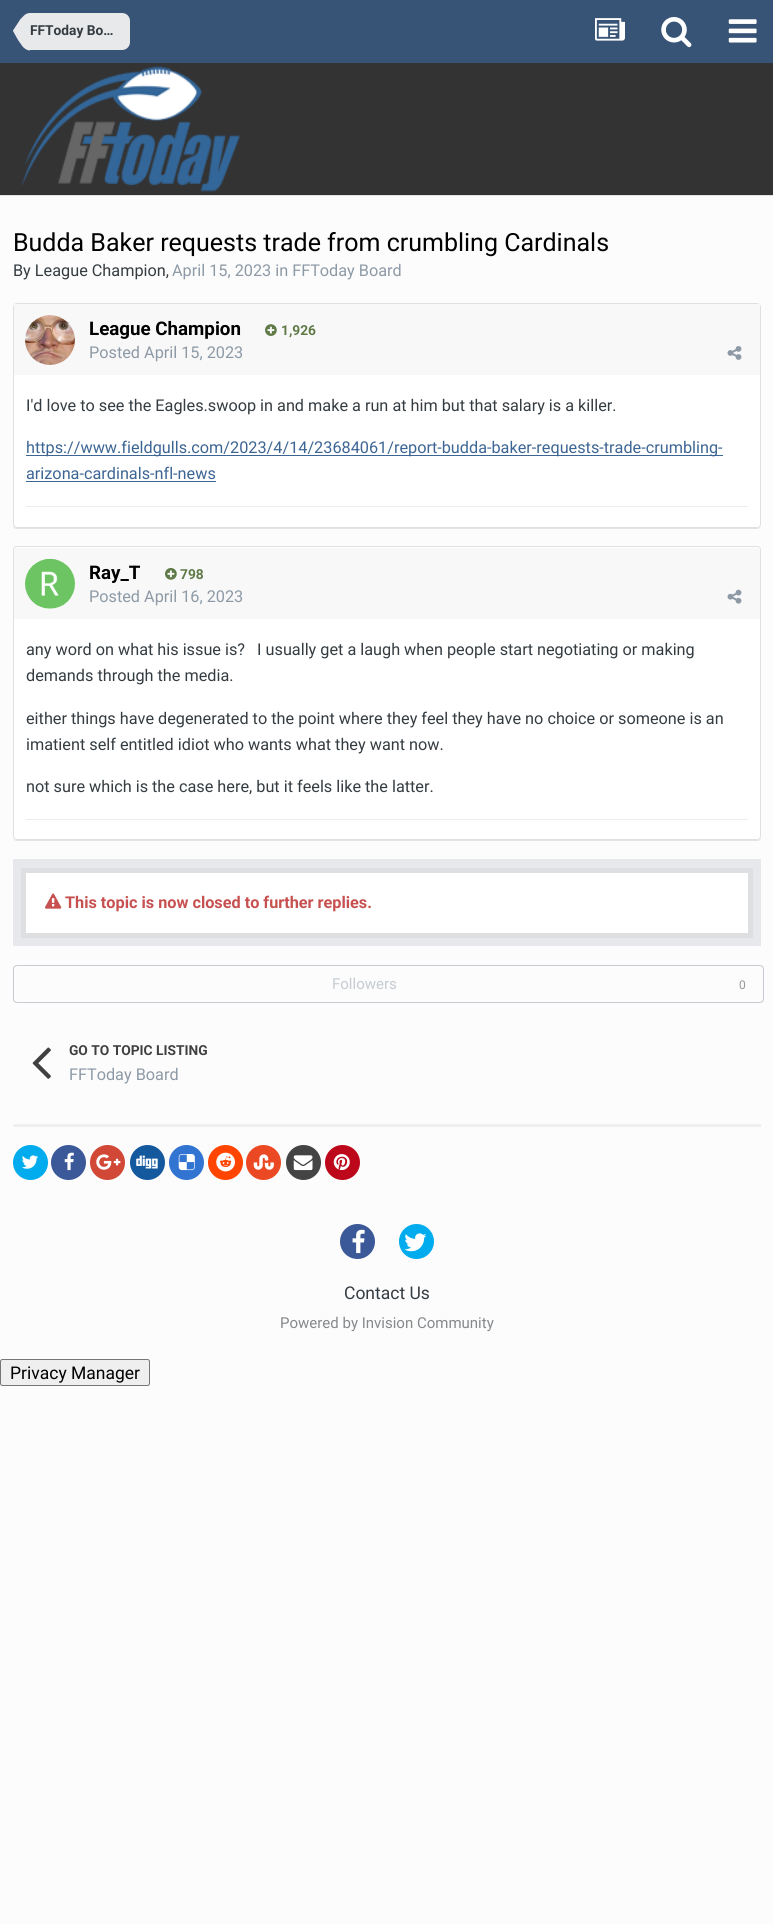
#include <cairo.h>
#include <math.h>
#include <stddef.h>


static void set_color(cairo_t *cr, unsigned color) {
    cairo_set_source_rgb(cr, (color >> 16) / 255.0, (color >> 8 & 255) / 255.0, (color & 255) / 255.0);
}

static void draw_text(cairo_t *cr, double x, double y, const char *s, const char *family, double size, int italic, int bold, unsigned color) {
    cairo_select_font_face(cr, family, italic ? CAIRO_FONT_SLANT_ITALIC : CAIRO_FONT_SLANT_NORMAL,
        bold ? CAIRO_FONT_WEIGHT_BOLD : CAIRO_FONT_WEIGHT_NORMAL);
    cairo_set_font_size(cr, size);
    set_color(cr, color);
    cairo_move_to(cr, x, y);
    cairo_show_text(cr, s);
}

static void fill_rect(cairo_t *cr, double x, double y, double w, double h, unsigned color) {
    set_color(cr, color);
    cairo_rectangle(cr, x, y, w, h);
    cairo_fill(cr);
}

static void rounded_rect(cairo_t *cr, double x, double y, double w, double h, double r) {
    cairo_new_sub_path(cr);
    cairo_arc(cr, x + w - r, y + h - r, r, 0, M_PI / 2);
    cairo_arc(cr, x + r, y + h - r, r, M_PI / 2, M_PI);
    cairo_arc(cr, x + r, y + r, r, M_PI, 1.5 * M_PI);
    cairo_arc(cr, x + w - r, y + r, r, 1.5 * M_PI, 2 * M_PI);
    cairo_close_path(cr);
}

static void draw_image(cairo_t *cr, const char *path, double x, double y, double w, double h) {
    cairo_surface_t *image = cairo_image_surface_create_from_png(path);
    cairo_save(cr);
    cairo_set_source_surface(cr, image, x, y);
    cairo_rectangle(cr, x, y, w, h);
    cairo_fill(cr);
    cairo_restore(cr);
    cairo_surface_destroy(image);
}

int main(void) {
    cairo_surface_t *surface = cairo_image_surface_create(CAIRO_FORMAT_RGB24, 773, 1924);
    cairo_t *cr = cairo_create(surface);
    cairo_font_options_t *options = cairo_font_options_create();
    cairo_font_options_set_hint_metrics(options, CAIRO_HINT_METRICS_OFF);
    cairo_font_options_set_hint_style(options, CAIRO_HINT_STYLE_NONE);
    cairo_set_font_options(cr, options);
    cairo_set_miter_limit(cr, 4);
    set_color(cr, 0xFCFCFC);
    cairo_paint(cr);
    fill_rect(cr, 0, 195, 773, 1, 0xE3E3E3);
    fill_rect(cr, 0, 0, 773, 63, 0x375476);
    set_color(cr, 0xE8E9EB);
    cairo_new_path(cr);
    cairo_move_to(cr, 30, 13);
    cairo_line_to(cr, 122, 13);
    cairo_curve_to(cr, 126.5, 13, 130, 16.5, 130, 21);
    cairo_line_to(cr, 130, 42);
    cairo_curve_to(cr, 130, 46.5, 126.5, 50, 122, 50);
    cairo_line_to(cr, 30, 50);
    cairo_close_path(cr);
    cairo_fill(cr);
    cairo_new_path(cr);
    cairo_move_to(cr, 13, 31);
    cairo_line_to(cr, 30, 31);
    cairo_line_to(cr, 30, 50.5);
    cairo_curve_to(cr, 28, 50.5, 25.5, 49.5, 23, 47);
    cairo_line_to(cr, 18, 40);
    cairo_close_path(cr);
    cairo_move_to(cr, 30, 13);
    cairo_line_to(cr, 30, 31);
    cairo_line_to(cr, 13, 31);
    cairo_line_to(cr, 13, 30.5);
    cairo_line_to(cr, 20.5, 19);
    cairo_line_to(cr, 24, 15.5);
    cairo_curve_to(cr, 25.5, 14, 27.5, 13, 30, 13);
    cairo_close_path(cr);
    cairo_fill(cr);
    draw_text(cr, 30, 35, "FFToday Bo…", "Roboto", 13.75, 0, 1, 0x353C41);
    draw_image(cr, "assets/img1.png", 595, 18, 30, 23);
    draw_image(cr, "assets/img2.png", 661, 17, 31, 31);
    draw_image(cr, "assets/img3.png", 728, 19, 29, 24);
    fill_rect(cr, 0, 63, 773, 132, 0x333333);
    draw_image(cr, "assets/img4.png", 21, 66, 220, 126);
    draw_text(cr, 13, 251, "Budda Baker requests trade from crumbling Cardinals", "Roboto", 25, 0, 0, 0x000000);
    draw_text(cr, 13, 276, "By League Champion,", "Roboto", 16.25, 0, 0, 0x353C41);
    draw_text(cr, 172, 276, "April 15, 2023 in FFToday Board", "Roboto", 16.25, 0, 0, 0x8D9AA6);
    set_color(cr, 0xE3E3E3);
    cairo_new_path(cr);
    cairo_move_to(cr, 13, 526);
    cairo_curve_to(cr, 13, 528, 15, 529, 17, 529);
    cairo_line_to(cr, 757, 529);
    cairo_curve_to(cr, 759, 529, 761, 527, 761, 525);
    cairo_curve_to(cr, 760, 527, 759, 528, 758, 528);
    cairo_line_to(cr, 16, 528);
    cairo_curve_to(cr, 15, 528, 14, 527, 13, 526);
    cairo_close_path(cr);
    cairo_fill(cr);
    set_color(cr, 0xFFFFFF);
    rounded_rect(cr, 13.5, 303.5, 747, 224, 3.5);
    cairo_fill_preserve(cr);
    set_color(cr, 0xE0E0E0);
    cairo_set_line_width(cr, 1);
    cairo_stroke(cr);
    fill_rect(cr, 14, 304, 746, 71, 0xF8F8F8);
    set_color(cr, 0xFFFFFF);
    cairo_arc(cr, 50, 340, 25, 0, 2 * M_PI);
    cairo_fill(cr);
    draw_image(cr, "assets/img5.png", 25, 315, 50, 50);
    draw_text(cr, 89, 335, "League Champion", "Roboto", 18.75, 0, 1, 0x000000);
    draw_image(cr, "assets/img6.png", 265, 324, 12, 12);
    draw_text(cr, 281, 335, "1,926", "Roboto", 13.75, 0, 1, 0x5F7A47);
    draw_text(cr, 89, 358, "Posted April 15, 2023", "Roboto", 16.25, 0, 0, 0x8D9AA6);
    draw_image(cr, "assets/img7.png", 727, 346, 15, 14);
    draw_text(cr, 26, 411, "I'd love to see the Eagles.swoop in and make a run at him but that salary is a killer.", "Roboto", 16.25, 0, 0, 0x353C41);
    fill_rect(cr, 26, 455, 697, 1, 0x3D6594);
    draw_text(cr, 26, 453, "https://www.fieldgulls.com/2023/4/14/23684061/report-budda-baker-requests-trade-crumbling-", "Roboto", 16.25, 0, 0, 0x3D6594);
    draw_text(cr, 26, 479, "arizona-cardinals-nfl-news", "Roboto", 16.25, 0, 0, 0x3D6594);
    fill_rect(cr, 26, 481, 190, 1, 0x3D6594);
    fill_rect(cr, 26, 506, 722, 1, 0xECECEC);
    set_color(cr, 0xE3E3E3);
    cairo_new_path(cr);
    cairo_move_to(cr, 13, 839);
    cairo_curve_to(cr, 14, 840, 15, 841, 17, 841);
    cairo_line_to(cr, 757, 841);
    cairo_curve_to(cr, 759, 841, 761, 840, 761, 838);
    cairo_curve_to(cr, 760, 839, 759, 840, 758, 840);
    cairo_line_to(cr, 16, 840);
    cairo_curve_to(cr, 15, 840, 14, 839, 13, 839);
    cairo_close_path(cr);
    cairo_fill(cr);
    set_color(cr, 0xFFFFFF);
    rounded_rect(cr, 13.5, 546.5, 747, 293, 3.5);
    cairo_fill_preserve(cr);
    set_color(cr, 0xE0E0E0);
    cairo_stroke(cr);
    fill_rect(cr, 14, 548, 746, 71, 0xF8F8F8);
    set_color(cr, 0xFFFFFF);
    cairo_arc(cr, 50, 584, 25, 0, 2 * M_PI);
    cairo_fill(cr);
    draw_image(cr, "assets/img8.png", 25, 558, 50, 51);
    draw_text(cr, 89, 579, "Ray_T", "Roboto", 18.75, 0, 1, 0x000000);
    draw_image(cr, "assets/img9.png", 165, 568, 12, 12);
    draw_text(cr, 180, 579, "798", "Roboto", 13.75, 0, 1, 0x5F7A47);
    draw_text(cr, 89, 602, "Posted April 16, 2023", "Roboto", 16.25, 0, 0, 0x8D9AA6);
    draw_image(cr, "assets/img10.png", 727, 589, 15, 15);
    draw_text(cr, 26, 655, "any word on what his issue is?   I usually get a laugh when people start negotiating or making", "Roboto", 16.25, 0, 0, 0x353C41);
    draw_text(cr, 26, 681, "demands through the media.", "Roboto", 16.25, 0, 0, 0x353C41);
    draw_text(cr, 26, 724, "either things have degenerated to the point where they feel they have no choice or someone is an", "Roboto", 16.25, 0, 0, 0x353C41);
    draw_text(cr, 26, 750, "imatient self entitled idiot who wants what they want now.", "Roboto", 16.25, 0, 0, 0x353C41);
    draw_text(cr, 26, 792, "not sure which is the case here, but it feels like the latter.", "Roboto", 16.25, 0, 0, 0x353C41);
    fill_rect(cr, 26, 819, 722, 1, 0xECECEC);
    fill_rect(cr, 13, 859, 748, 87, 0xE6E8EB);
    fill_rect(cr, 21, 868, 732, 70, 0xDEDFE1);
    fill_rect(cr, 26, 873, 722, 60, 0xFFFFFF);
    draw_image(cr, "assets/img11.png", 45, 893, 17, 16);
    draw_text(cr, 65, 908, "This topic is now closed to further replies.", "Roboto", 16.25, 0, 1, 0xC75050);
    rounded_rect(cr, 13.5, 965.5, 750, 37, 3.5);
    set_color(cr, 0xC5CBD1);
    cairo_stroke(cr);
    draw_text(cr, 332, 989, "Followers", "Roboto", 15, 0, 0, 0xC5CBD1);
    draw_text(cr, 739, 989, "0", "Roboto", 12, 0, 0, 0x989898);
    draw_image(cr, "assets/img12.png", 32, 1047, 19, 32);
    draw_text(cr, 69, 1055, "GO TO TOPIC LISTING", "Roboto", 13.75, 0, 1, 0x404040);
    draw_text(cr, 69, 1080, "FFToday Board", "Roboto", 16.25, 0, 0, 0x8D9AA6);
    fill_rect(cr, 13, 1124, 748, 3, 0xEFEFEF);
    set_color(cr, 0x00ACED);
    cairo_new_path(cr);
    cairo_arc(cr, 30.5, 1162.5, 17.5, 0, 2 * M_PI);
    cairo_fill(cr);
    draw_image(cr, "assets/img13.png", 22, 1155, 16, 14);
    set_color(cr, 0x3B5998);
    cairo_arc(cr, 68.5, 1162.5, 17.5, 0, 2 * M_PI);
    cairo_fill(cr);
    draw_image(cr, "assets/img14.png", 64, 1152, 10, 19);
    set_color(cr, 0xD14836);
    cairo_arc(cr, 107.5, 1162.5, 17.5, 0, 2 * M_PI);
    cairo_fill(cr);
    draw_image(cr, "assets/img15.png", 96, 1154, 25, 16);
    set_color(cr, 0x14589E);
    cairo_arc(cr, 147.5, 1162.5, 17.5, 0, 2 * M_PI);
    cairo_fill(cr);
    draw_image(cr, "assets/img16.png", 136, 1155, 22, 14);
    set_color(cr, 0x3274D1);
    cairo_arc(cr, 186.5, 1162.5, 17.5, 0, 2 * M_PI);
    cairo_fill(cr);
    draw_image(cr, "assets/img17.png", 178, 1154, 17, 17);
    set_color(cr, 0xFF4500);
    cairo_arc(cr, 225.5, 1162.5, 17.5, 0, 2 * M_PI);
    cairo_fill(cr);
    draw_image(cr, "assets/img18.png", 216, 1152, 19, 20);
    set_color(cr, 0xEB4924);
    cairo_arc(cr, 263.5, 1162.5, 17.5, 0, 2 * M_PI);
    cairo_fill(cr);
    draw_image(cr, "assets/img19.png", 253, 1154, 21, 16);
    set_color(cr, 0x444444);
    cairo_arc(cr, 303.5, 1162.5, 17.5, 0, 2 * M_PI);
    cairo_fill(cr);
    draw_image(cr, "assets/img20.png", 293, 1155, 20, 16);
    set_color(cr, 0xBD081C);
    cairo_arc(cr, 342.5, 1162.5, 17.5, 0, 2 * M_PI);
    cairo_fill(cr);
    draw_image(cr, "assets/img21.png", 333, 1154, 17, 17);
    set_color(cr, 0x3B5998);
    cairo_arc(cr, 357.5, 1241.5, 17.5, 0, 2 * M_PI);
    cairo_fill(cr);
    draw_image(cr, "assets/img22.png", 352, 1229, 13, 25);
    set_color(cr, 0x00ACED);
    cairo_arc(cr, 416.5, 1241.5, 17.5, 0, 2 * M_PI);
    cairo_fill(cr);
    draw_image(cr, "assets/img23.png", 404, 1233, 23, 19);
    draw_text(cr, 344, 1299, "Contact Us", "Roboto", 17.5, 0, 0, 0x353C41);
    draw_text(cr, 280, 1328, "Powered by Invision Community", "Roboto", 15, 0, 0, 0x85898C);
    set_color(cr, 0xEFEFEF);
    rounded_rect(cr, 0.5, 1359.5, 149, 26, 2);
    cairo_fill_preserve(cr);
    set_color(cr, 0x767676);
    cairo_stroke(cr);
    draw_text(cr, 10, 1379, "Privacy Manager", "Roboto", 17.5, 0, 0, 0x000000);
    cairo_surface_write_to_png(surface, "output.png");
    cairo_font_options_destroy(options);
    cairo_destroy(cr);
    cairo_surface_destroy(surface);
    return 0;
}
